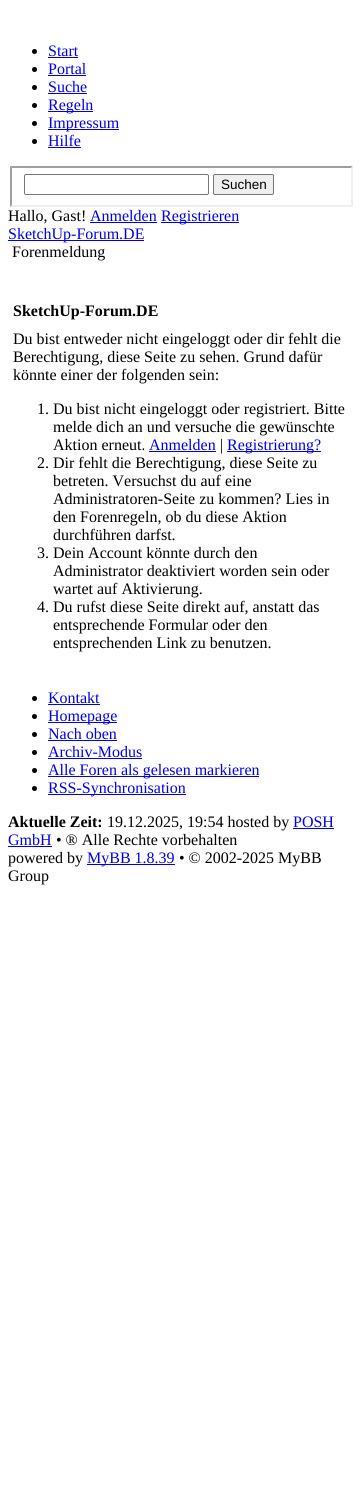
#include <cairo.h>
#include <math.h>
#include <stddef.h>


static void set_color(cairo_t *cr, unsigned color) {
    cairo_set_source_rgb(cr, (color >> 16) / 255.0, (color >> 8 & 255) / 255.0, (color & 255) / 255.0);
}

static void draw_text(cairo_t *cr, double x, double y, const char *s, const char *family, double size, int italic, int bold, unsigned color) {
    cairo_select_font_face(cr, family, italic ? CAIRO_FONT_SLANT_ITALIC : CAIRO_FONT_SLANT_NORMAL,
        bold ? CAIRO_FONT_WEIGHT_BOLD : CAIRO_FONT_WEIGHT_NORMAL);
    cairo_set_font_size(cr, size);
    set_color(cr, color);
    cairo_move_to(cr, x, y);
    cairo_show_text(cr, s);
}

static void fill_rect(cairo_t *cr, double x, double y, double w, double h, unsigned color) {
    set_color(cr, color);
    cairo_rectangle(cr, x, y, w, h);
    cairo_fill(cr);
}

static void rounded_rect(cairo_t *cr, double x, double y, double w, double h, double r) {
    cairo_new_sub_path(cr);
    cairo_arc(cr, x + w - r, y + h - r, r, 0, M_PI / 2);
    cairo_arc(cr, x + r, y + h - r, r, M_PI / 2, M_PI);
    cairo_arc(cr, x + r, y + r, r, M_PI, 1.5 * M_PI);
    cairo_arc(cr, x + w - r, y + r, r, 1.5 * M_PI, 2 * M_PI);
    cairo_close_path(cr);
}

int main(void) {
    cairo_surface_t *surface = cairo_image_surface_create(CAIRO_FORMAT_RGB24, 363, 1488);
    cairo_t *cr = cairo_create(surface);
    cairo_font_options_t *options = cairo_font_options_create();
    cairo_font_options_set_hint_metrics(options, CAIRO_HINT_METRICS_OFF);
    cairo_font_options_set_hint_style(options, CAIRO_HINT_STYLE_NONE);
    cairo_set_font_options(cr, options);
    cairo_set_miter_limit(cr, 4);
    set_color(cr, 0xFFFFFF);
    cairo_paint(cr);
    set_color(cr, 0x000000);
    cairo_arc(cr, 34.5, 51.5, 2.5, 0, 2 * M_PI);
    cairo_fill(cr);
    draw_text(cr, 48, 56, "Start", "Liberation Serif", 16, 0, 0, 0x0000EE);
    fill_rect(cr, 48, 57, 30, 1, 0x0000EE);
    set_color(cr, 0x000000);
    cairo_new_path(cr);
    cairo_arc(cr, 34.5, 69.5, 2.5, 0, 2 * M_PI);
    cairo_fill(cr);
    draw_text(cr, 48, 74, "Portal", "Liberation Serif", 16, 0, 0, 0x0000EE);
    fill_rect(cr, 48, 75, 38, 1, 0x0000EE);
    set_color(cr, 0x000000);
    cairo_new_path(cr);
    cairo_arc(cr, 34.5, 87.5, 2.5, 0, 2 * M_PI);
    cairo_fill(cr);
    draw_text(cr, 48, 92, "Suche", "Liberation Serif", 16, 0, 0, 0x0000EE);
    fill_rect(cr, 48, 93, 39, 1, 0x0000EE);
    set_color(cr, 0x000000);
    cairo_new_path(cr);
    cairo_arc(cr, 34.5, 105.5, 2.5, 0, 2 * M_PI);
    cairo_fill(cr);
    fill_rect(cr, 48, 111, 45, 1, 0x0000EE);
    draw_text(cr, 48, 110, "Regeln", "Liberation Serif", 16, 0, 0, 0x0000EE);
    set_color(cr, 0x000000);
    cairo_new_path(cr);
    cairo_arc(cr, 34.5, 123.5, 2.5, 0, 2 * M_PI);
    cairo_fill(cr);
    fill_rect(cr, 48, 129, 71, 1, 0x0000EE);
    draw_text(cr, 48, 128, "Impressum", "Liberation Serif", 16, 0, 0, 0x0000EE);
    set_color(cr, 0x000000);
    cairo_new_path(cr);
    cairo_arc(cr, 34.5, 141.5, 2.5, 0, 2 * M_PI);
    cairo_fill(cr);
    draw_text(cr, 48, 146, "Hilfe", "Liberation Serif", 16, 0, 0, 0x0000EE);
    fill_rect(cr, 48, 147, 33, 1, 0x0000EE);
    set_color(cr, 0x9F9F9F);
    cairo_new_path(cr);
    cairo_move_to(cr, 10, 166);
    cairo_line_to(cr, 353, 166);
    cairo_line_to(cr, 351, 168);
    cairo_line_to(cr, 12, 168);
    cairo_close_path(cr);
    cairo_fill(cr);
    set_color(cr, 0xEFEFEF);
    cairo_new_path(cr);
    cairo_move_to(cr, 353, 166);
    cairo_line_to(cr, 353, 207);
    cairo_line_to(cr, 351, 205);
    cairo_line_to(cr, 351, 168);
    cairo_close_path(cr);
    cairo_fill(cr);
    cairo_new_path(cr);
    cairo_move_to(cr, 353, 207);
    cairo_line_to(cr, 10, 207);
    cairo_line_to(cr, 12, 205);
    cairo_line_to(cr, 351, 205);
    cairo_close_path(cr);
    cairo_fill(cr);
    set_color(cr, 0x9F9F9F);
    cairo_new_path(cr);
    cairo_move_to(cr, 10, 207);
    cairo_line_to(cr, 10, 166);
    cairo_line_to(cr, 12, 168);
    cairo_line_to(cr, 12, 205);
    cairo_close_path(cr);
    cairo_fill(cr);
    rounded_rect(cr, 24.5, 174.5, 184, 20, 1.5);
    set_color(cr, 0x767676);
    cairo_set_line_width(cr, 1);
    cairo_stroke(cr);
    set_color(cr, 0xEFEFEF);
    rounded_rect(cr, 213.5, 174.5, 60, 20, 1.5);
    cairo_fill_preserve(cr);
    set_color(cr, 0x767676);
    cairo_stroke(cr);
    draw_text(cr, 221, 189, "Suchen", "Liberation Sans", 13.5, 0, 0, 0x000000);
    draw_text(cr, 8, 221, "Hallo, Gast!", "Liberation Serif", 16, 0, 0, 0x000000);
    draw_text(cr, 90, 221, "Anmelden", "Liberation Serif", 16, 0, 0, 0x0000EE);
    fill_rect(cr, 90, 222, 67, 1, 0x0000EE);
    fill_rect(cr, 161, 222, 78, 1, 0x0000EE);
    draw_text(cr, 161, 221, "Registrieren", "Liberation Serif", 16, 0, 0, 0x0000EE);
    fill_rect(cr, 8, 240, 136, 1, 0x0000EE);
    draw_text(cr, 8, 239, "SketchUp-Forum.DE", "Liberation Serif", 16, 0, 0, 0x0000EE);
    draw_text(cr, 12, 257, "Forenmeldung", "Liberation Serif", 16, 0, 0, 0x000000);
    draw_text(cr, 13, 316, "SketchUp-Forum.DE", "Liberation Serif", 16, 0, 1, 0x000000);
    draw_text(cr, 13, 344, "Du bist entweder nicht eingeloggt oder dir fehlt die", "Liberation Serif", 16, 0, 0, 0x000000);
    draw_text(cr, 13, 362, "Berechtigung, diese Seite zu sehen. Grund dafür", "Liberation Serif", 16, 0, 0, 0x000000);
    draw_text(cr, 13, 380, "könnte einer der folgenden sein:", "Liberation Serif", 16, 0, 0, 0x000000);
    draw_text(cr, 37, 414, "1. Du bist nicht eingeloggt oder registriert. Bitte", "Liberation Serif", 16, 0, 0, 0x000000);
    draw_text(cr, 53, 432, "melde dich an und versuche die gewünschte", "Liberation Serif", 16, 0, 0, 0x000000);
    draw_text(cr, 53, 450, "Aktion erneut.", "Liberation Serif", 16, 0, 0, 0x000000);
    draw_text(cr, 149, 450, "Anmelden", "Liberation Serif", 16, 0, 0, 0x0000EE);
    fill_rect(cr, 149, 451, 67, 1, 0x0000EE);
    draw_text(cr, 220, 450, "|", "Liberation Serif", 16, 0, 0, 0x000000);
    fill_rect(cr, 227, 451, 94, 1, 0x0000EE);
    draw_text(cr, 227, 450, "Registrierung?", "Liberation Serif", 16, 0, 0, 0x0000EE);
    draw_text(cr, 37, 468, "2. Dir fehlt die Berechtigung, diese Seite zu", "Liberation Serif", 16, 0, 0, 0x000000);
    draw_text(cr, 53, 486, "betreten. Versuchst du auf eine", "Liberation Serif", 16, 0, 0, 0x000000);
    draw_text(cr, 53, 504, "Administratoren-Seite zu kommen? Lies in", "Liberation Serif", 16, 0, 0, 0x000000);
    draw_text(cr, 53, 522, "den Forenregeln, ob du diese Aktion", "Liberation Serif", 16, 0, 0, 0x000000);
    draw_text(cr, 53, 540, "durchführen darfst.", "Liberation Serif", 16, 0, 0, 0x000000);
    draw_text(cr, 37, 558, "3. Dein Account könnte durch den", "Liberation Serif", 16, 0, 0, 0x000000);
    draw_text(cr, 53, 576, "Administrator deaktiviert worden sein oder", "Liberation Serif", 16, 0, 0, 0x000000);
    draw_text(cr, 53, 594, "wartet auf Aktivierung.", "Liberation Serif", 16, 0, 0, 0x000000);
    draw_text(cr, 37, 612, "4. Du rufst diese Seite direkt auf, anstatt das", "Liberation Serif", 16, 0, 0, 0x000000);
    draw_text(cr, 53, 630, "entsprechende Formular oder den", "Liberation Serif", 16, 0, 0, 0x000000);
    draw_text(cr, 53, 648, "entsprechenden Link zu benutzen.", "Liberation Serif", 16, 0, 0, 0x000000);
    cairo_new_path(cr);
    cairo_arc(cr, 34.5, 698.5, 2.5, 0, 2 * M_PI);
    cairo_fill(cr);
    draw_text(cr, 48, 703, "Kontakt", "Liberation Serif", 16, 0, 0, 0x0000EE);
    fill_rect(cr, 48, 704, 52, 1, 0x0000EE);
    set_color(cr, 0x000000);
    cairo_new_path(cr);
    cairo_arc(cr, 34.5, 716.5, 2.5, 0, 2 * M_PI);
    cairo_fill(cr);
    fill_rect(cr, 48, 722, 69, 1, 0x0000EE);
    draw_text(cr, 48, 721, "Homepage", "Liberation Serif", 16, 0, 0, 0x0000EE);
    set_color(cr, 0x000000);
    cairo_new_path(cr);
    cairo_arc(cr, 34.5, 734.5, 2.5, 0, 2 * M_PI);
    cairo_fill(cr);
    draw_text(cr, 48, 739, "Nach oben", "Liberation Serif", 16, 0, 0, 0x0000EE);
    fill_rect(cr, 48, 740, 69, 1, 0x0000EE);
    set_color(cr, 0x000000);
    cairo_new_path(cr);
    cairo_arc(cr, 34.5, 752.5, 2.5, 0, 2 * M_PI);
    cairo_fill(cr);
    draw_text(cr, 48, 757, "Archiv-Modus", "Liberation Serif", 16, 0, 0, 0x0000EE);
    fill_rect(cr, 48, 758, 94, 1, 0x0000EE);
    set_color(cr, 0x000000);
    cairo_new_path(cr);
    cairo_arc(cr, 34.5, 770.5, 2.5, 0, 2 * M_PI);
    cairo_fill(cr);
    fill_rect(cr, 48, 776, 211, 1, 0x0000EE);
    draw_text(cr, 48, 775, "Alle Foren als gelesen markieren", "Liberation Serif", 16, 0, 0, 0x0000EE);
    set_color(cr, 0x000000);
    cairo_new_path(cr);
    cairo_arc(cr, 34.5, 788.5, 2.5, 0, 2 * M_PI);
    cairo_fill(cr);
    fill_rect(cr, 48, 794, 138, 1, 0x0000EE);
    draw_text(cr, 48, 793, "RSS-Synchronisation", "Liberation Serif", 16, 0, 0, 0x0000EE);
    draw_text(cr, 8, 827, "Aktuelle Zeit:", "Liberation Serif", 16, 0, 1, 0x000000);
    draw_text(cr, 107, 827, "19.12.2025, 19:54 hosted by", "Liberation Serif", 16, 0, 0, 0x000000);
    draw_text(cr, 293, 827, "POSH", "Liberation Serif", 16, 0, 0, 0x0000EE);
    fill_rect(cr, 293, 828, 41, 1, 0x0000EE);
    draw_text(cr, 8, 845, "GmbH", "Liberation Serif", 16, 0, 0, 0x0000EE);
    fill_rect(cr, 8, 846, 44, 1, 0x0000EE);
    draw_text(cr, 56, 845, "• ® Alle Rechte vorbehalten", "Liberation Serif", 16, 0, 0, 0x000000);
    draw_text(cr, 8, 863, "powered by", "Liberation Serif", 16, 0, 0, 0x000000);
    fill_rect(cr, 87, 864, 88, 1, 0x0000EE);
    draw_text(cr, 87, 863, "MyBB 1.8.39", "Liberation Serif", 16, 0, 0, 0x0000EE);
    draw_text(cr, 179, 863, "• © 2002-2025 MyBB", "Liberation Serif", 16, 0, 0, 0x000000);
    draw_text(cr, 8, 881, "Group", "Liberation Serif", 16, 0, 0, 0x000000);
    cairo_surface_write_to_png(surface, "output.png");
    cairo_font_options_destroy(options);
    cairo_destroy(cr);
    cairo_surface_destroy(surface);
    return 0;
}
